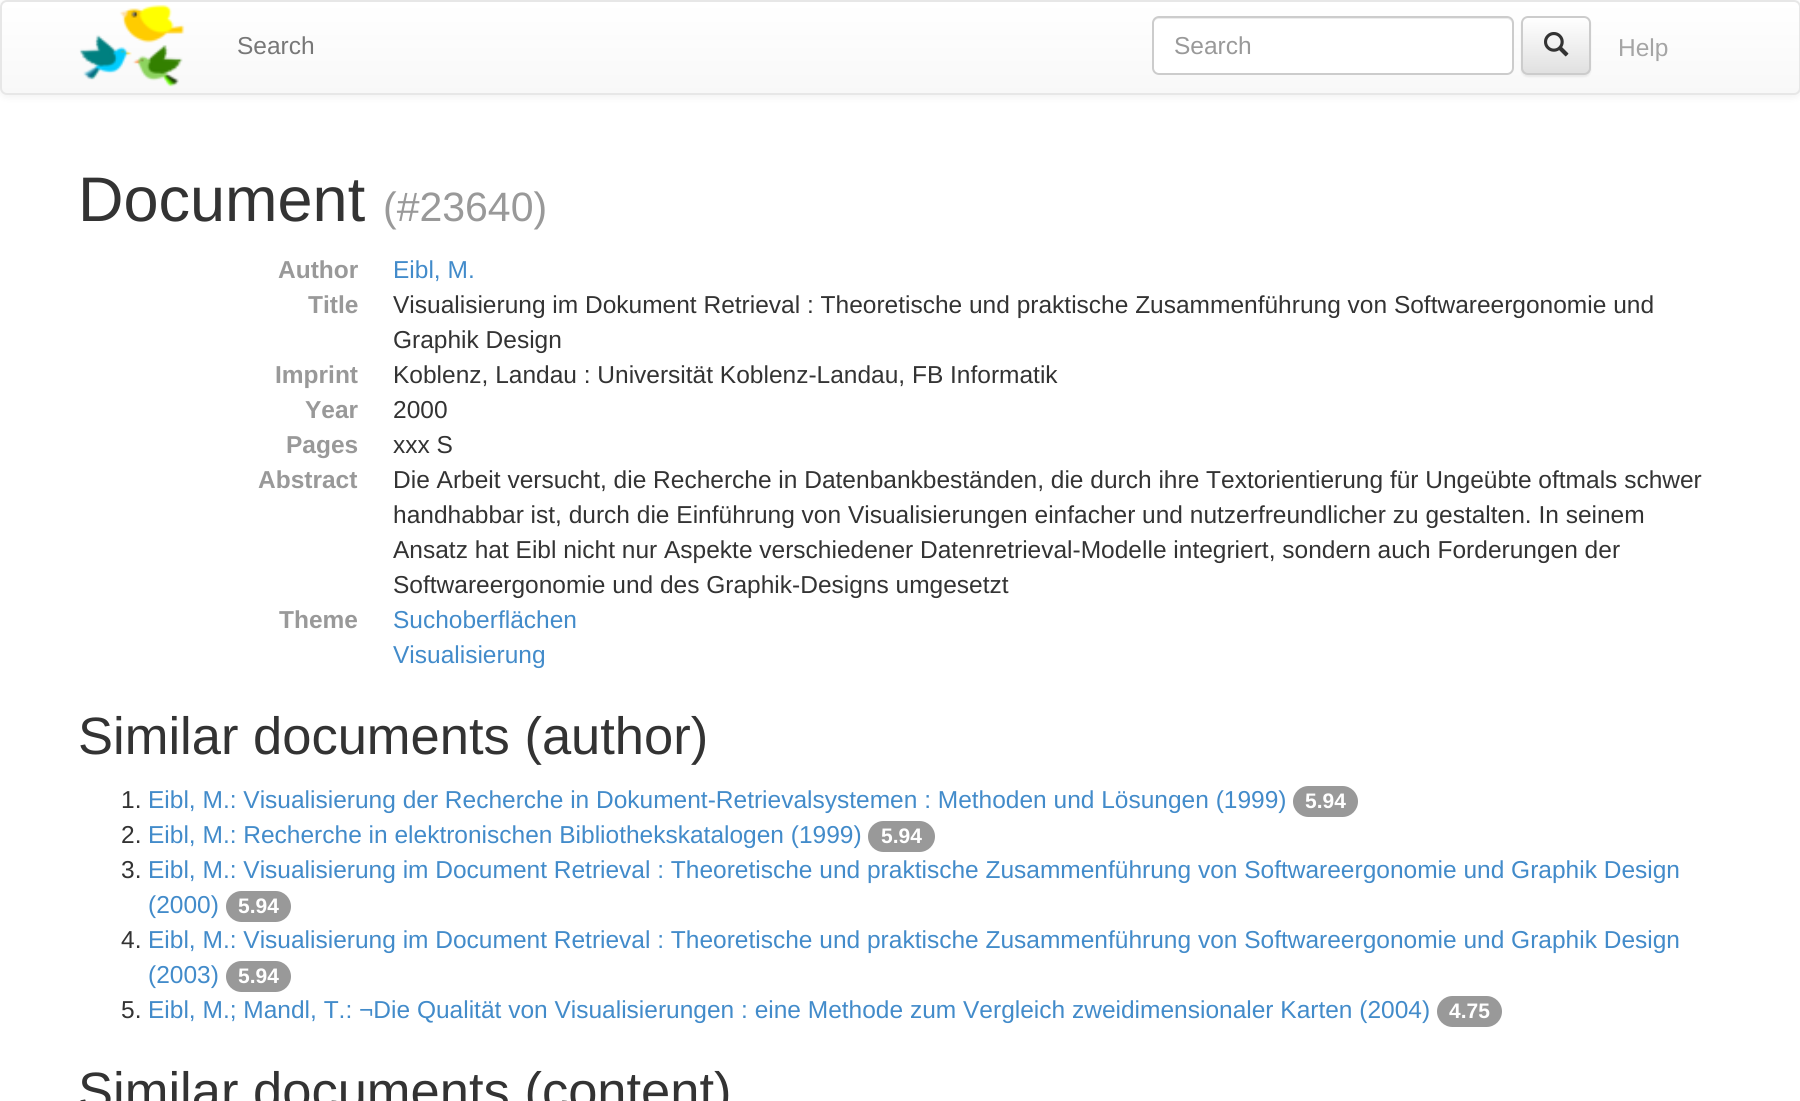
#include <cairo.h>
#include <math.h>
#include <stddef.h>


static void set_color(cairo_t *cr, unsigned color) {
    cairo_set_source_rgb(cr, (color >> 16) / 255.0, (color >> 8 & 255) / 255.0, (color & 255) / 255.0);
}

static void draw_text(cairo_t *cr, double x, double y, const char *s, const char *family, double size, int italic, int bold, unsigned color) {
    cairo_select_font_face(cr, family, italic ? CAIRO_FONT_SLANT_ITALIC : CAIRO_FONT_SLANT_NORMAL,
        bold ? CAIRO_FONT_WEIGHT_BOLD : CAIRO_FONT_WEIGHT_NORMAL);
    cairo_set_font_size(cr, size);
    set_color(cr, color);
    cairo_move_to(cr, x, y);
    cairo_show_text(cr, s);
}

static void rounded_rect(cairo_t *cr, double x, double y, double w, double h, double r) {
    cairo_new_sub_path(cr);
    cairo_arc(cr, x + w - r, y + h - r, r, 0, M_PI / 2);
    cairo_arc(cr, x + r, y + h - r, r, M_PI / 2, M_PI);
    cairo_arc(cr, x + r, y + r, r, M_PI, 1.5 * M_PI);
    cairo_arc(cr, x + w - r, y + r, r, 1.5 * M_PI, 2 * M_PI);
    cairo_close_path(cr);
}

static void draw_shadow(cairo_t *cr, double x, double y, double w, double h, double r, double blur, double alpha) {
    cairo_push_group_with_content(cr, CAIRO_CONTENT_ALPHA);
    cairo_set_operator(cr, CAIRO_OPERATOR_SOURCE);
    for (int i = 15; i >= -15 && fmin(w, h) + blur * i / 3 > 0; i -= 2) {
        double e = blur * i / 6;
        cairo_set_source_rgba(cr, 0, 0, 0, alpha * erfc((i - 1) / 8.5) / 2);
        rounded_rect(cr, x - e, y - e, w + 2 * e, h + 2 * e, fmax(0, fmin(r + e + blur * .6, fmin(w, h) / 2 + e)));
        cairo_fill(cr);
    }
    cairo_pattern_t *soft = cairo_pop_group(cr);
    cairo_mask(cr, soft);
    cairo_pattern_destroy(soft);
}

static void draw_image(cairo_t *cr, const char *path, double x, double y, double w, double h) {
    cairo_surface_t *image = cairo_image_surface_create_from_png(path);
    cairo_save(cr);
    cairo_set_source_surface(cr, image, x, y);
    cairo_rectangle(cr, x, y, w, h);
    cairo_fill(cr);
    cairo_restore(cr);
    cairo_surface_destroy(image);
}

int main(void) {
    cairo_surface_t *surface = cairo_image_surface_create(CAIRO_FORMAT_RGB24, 1800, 1101);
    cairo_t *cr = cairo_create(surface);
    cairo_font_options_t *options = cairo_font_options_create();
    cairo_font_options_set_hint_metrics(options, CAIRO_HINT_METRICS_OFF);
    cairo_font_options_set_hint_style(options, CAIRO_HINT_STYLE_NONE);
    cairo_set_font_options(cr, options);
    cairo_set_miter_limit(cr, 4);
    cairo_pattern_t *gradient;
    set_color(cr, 0xFFFFFF);
    cairo_paint(cr);
    set_color(cr, 0x000000);
    draw_shadow(cr, 0, 2, 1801, 94, 7, 4.5, 0.07);
    cairo_save(cr);
    rounded_rect(cr, 0, 0, 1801, 95, 7);
    cairo_clip(cr);
    gradient = cairo_pattern_create_linear(900, 1.7, 900, 93);
    cairo_pattern_add_color_stop_rgba(gradient, 0, 1, 1, 1, 1);
    cairo_pattern_add_color_stop_rgba(gradient, 1, 0.973, 0.973, 0.973, 1);
    cairo_set_source(cr, gradient);
    cairo_pattern_destroy(gradient);
    cairo_rectangle(cr, 0, 2, 1800, 91);
    cairo_fill(cr);
    cairo_restore(cr);
    rounded_rect(cr, 1, 1, 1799, 93, 6);
    set_color(cr, 0xE7E7E7);
    cairo_stroke(cr);
    draw_image(cr, "assets/img1.png", 79, 4, 106, 83);
    draw_text(cr, 237, 54, "Search", "Liberation Sans", 24.5, 0, 0, 0x777777);
    set_color(cr, 0xFFFFFF);
    rounded_rect(cr, 1152, 16, 362, 59, 7);
    cairo_fill(cr);
    set_color(cr, 0xECECEC);
    cairo_new_path(cr);
    cairo_move_to(cr, 1158, 19);
    cairo_line_to(cr, 1507, 19);
    cairo_curve_to(cr, 1510, 19, 1512, 22, 1512, 24);
    cairo_line_to(cr, 1512, 23);
    cairo_curve_to(cr, 1512, 20, 1510, 18, 1507, 18);
    cairo_line_to(cr, 1158, 18);
    cairo_curve_to(cr, 1155, 18, 1153, 20, 1153, 23);
    cairo_line_to(cr, 1153, 24);
    cairo_curve_to(cr, 1153, 22, 1156, 19, 1158, 19);
    cairo_close_path(cr);
    cairo_fill(cr);
    rounded_rect(cr, 1153, 17, 360, 57, 6);
    set_color(cr, 0xCCCCCC);
    cairo_stroke(cr);
    draw_text(cr, 1174, 54, "Search", "Liberation Sans", 24.5, 0, 0, 0x999999);
    set_color(cr, 0x000000);
    draw_shadow(cr, 1521, 18, 70, 59, 7, 1, 0.07);
    cairo_save(cr);
    rounded_rect(cr, 1521, 16, 70, 59, 7);
    cairo_clip(cr);
    gradient = cairo_pattern_create_linear(1556, 17, 1556, 74);
    cairo_pattern_add_color_stop_rgba(gradient, 0, 1, 1, 1, 1);
    cairo_pattern_add_color_stop_rgba(gradient, 1, 0.878, 0.878, 0.878, 1);
    cairo_set_source(cr, gradient);
    cairo_pattern_destroy(gradient);
    cairo_rectangle(cr, 1521, 18, 70, 56);
    cairo_fill(cr);
    cairo_restore(cr);
    rounded_rect(cr, 1522, 17, 68, 57, 6);
    set_color(cr, 0xCCCCCC);
    cairo_stroke(cr);
    draw_image(cr, "assets/img2.png", 1544, 32, 25, 25);
    draw_text(cr, 1618, 56, "Help", "Liberation Sans", 24.5, 0, 0, 0xA5A5A5);
    draw_text(cr, 78, 221, "Document", "Liberation Sans", 63, 0, 0, 0x333333);
    draw_text(cr, 383, 221, "(#23640)", "Liberation Sans", 41, 0, 0, 0x999999);
    draw_text(cr, 278, 278, "Author", "Liberation Sans", 24.5, 0, 1, 0x999999);
    draw_text(cr, 393, 278, "Eibl, M.", "Liberation Sans", 24.5, 0, 0, 0x428BCA);
    draw_text(cr, 308, 313, "Title", "Liberation Sans", 24.5, 0, 1, 0x999999);
    draw_text(cr, 393, 313, "Visualisierung im Dokument Retrieval : Theoretische und praktische Zusammenführung von Softwareergonomie und", "Liberation Sans", 24.5, 0, 0, 0x333333);
    draw_text(cr, 393, 348, "Graphik Design", "Liberation Sans", 24.5, 0, 0, 0x333333);
    draw_text(cr, 275, 383, "Imprint", "Liberation Sans", 24.5, 0, 1, 0x999999);
    draw_text(cr, 393, 383, "Koblenz, Landau : Universität Koblenz-Landau, FB Informatik", "Liberation Sans", 24.5, 0, 0, 0x333333);
    draw_text(cr, 305, 418, "Year", "Liberation Sans", 24.5, 0, 1, 0x999999);
    draw_text(cr, 393, 418, "2000", "Liberation Sans", 24.5, 0, 0, 0x333333);
    draw_text(cr, 286, 453, "Pages", "Liberation Sans", 24.5, 0, 1, 0x999999);
    draw_text(cr, 393, 453, "xxx S", "Liberation Sans", 24.5, 0, 0, 0x333333);
    draw_text(cr, 258, 488, "Abstract", "Liberation Sans", 24.5, 0, 1, 0x999999);
    draw_text(cr, 393, 488, "Die Arbeit versucht, die Recherche in Datenbankbeständen, die durch ihre Textorientierung für Ungeübte oftmals schwer", "Liberation Sans", 24.5, 0, 0, 0x333333);
    draw_text(cr, 393, 523, "handhabbar ist, durch die Einführung von Visualisierungen einfacher und nutzerfreundlicher zu gestalten. In seinem", "Liberation Sans", 24.5, 0, 0, 0x333333);
    draw_text(cr, 393, 558, "Ansatz hat Eibl nicht nur Aspekte verschiedener Datenretrieval-Modelle integriert, sondern auch Forderungen der", "Liberation Sans", 24.5, 0, 0, 0x333333);
    draw_text(cr, 393, 593, "Softwareergonomie und des Graphik-Designs umgesetzt", "Liberation Sans", 24.5, 0, 0, 0x333333);
    draw_text(cr, 279, 628, "Theme", "Liberation Sans", 24.5, 0, 1, 0x999999);
    draw_text(cr, 393, 628, "Suchoberflächen", "Liberation Sans", 24.5, 0, 0, 0x428BCA);
    draw_text(cr, 393, 663, "Visualisierung", "Liberation Sans", 24.5, 0, 0, 0x428BCA);
    draw_text(cr, 78, 754, "Similar documents (author)", "Liberation Sans", 52.5, 0, 0, 0x333333);
    draw_text(cr, 121, 808, "1.", "Liberation Sans", 24.5, 0, 0, 0x333333);
    draw_text(cr, 148, 808, "Eibl, M.: Visualisierung der Recherche in Dokument-Retrievalsystemen : Methoden und Lösungen (1999)", "Liberation Sans", 24.5, 0, 0, 0x428BCA);
    set_color(cr, 0x999999);
    rounded_rect(cr, 1293, 786, 65, 31, 15.5);
    cairo_fill(cr);
    draw_text(cr, 1305, 808, "5.94", "Liberation Sans", 21, 0, 1, 0xFFFFFF);
    draw_text(cr, 121, 843, "2.", "Liberation Sans", 24.5, 0, 0, 0x333333);
    draw_text(cr, 148, 843, "Eibl, M.: Recherche in elektronischen Bibliothekskatalogen (1999)", "Liberation Sans", 24.5, 0, 0, 0x428BCA);
    set_color(cr, 0x999999);
    rounded_rect(cr, 868, 821, 67, 31, 15.5);
    cairo_fill(cr);
    draw_text(cr, 881, 843, "5.94", "Liberation Sans", 21, 0, 1, 0xFFFFFF);
    draw_text(cr, 121, 878, "3.", "Liberation Sans", 24.5, 0, 0, 0x333333);
    draw_text(cr, 148, 878, "Eibl, M.: Visualisierung im Document Retrieval : Theoretische und praktische Zusammenführung von Softwareergonomie und Graphik Design", "Liberation Sans", 24.5, 0, 0, 0x428BCA);
    draw_text(cr, 148, 913, "(2000)", "Liberation Sans", 24.5, 0, 0, 0x428BCA);
    set_color(cr, 0x999999);
    rounded_rect(cr, 226, 891, 65, 31, 15.5);
    cairo_fill(cr);
    draw_text(cr, 238, 913, "5.94", "Liberation Sans", 21, 0, 1, 0xFFFFFF);
    draw_text(cr, 121, 948, "4.", "Liberation Sans", 24.5, 0, 0, 0x333333);
    draw_text(cr, 148, 948, "Eibl, M.: Visualisierung im Document Retrieval : Theoretische und praktische Zusammenführung von Softwareergonomie und Graphik Design", "Liberation Sans", 24.5, 0, 0, 0x428BCA);
    draw_text(cr, 148, 983, "(2003)", "Liberation Sans", 24.5, 0, 0, 0x428BCA);
    set_color(cr, 0x999999);
    rounded_rect(cr, 226, 961, 65, 31, 15.5);
    cairo_fill(cr);
    draw_text(cr, 238, 983, "5.94", "Liberation Sans", 21, 0, 1, 0xFFFFFF);
    draw_text(cr, 121, 1018, "5.", "Liberation Sans", 24.5, 0, 0, 0x333333);
    draw_text(cr, 148, 1018, "Eibl, M.; Mandl, T.: ¬Die Qualität von Visualisierungen : eine Methode zum Vergleich zweidimensionaler Karten (2004)", "Liberation Sans", 24.5, 0, 0, 0x428BCA);
    set_color(cr, 0x999999);
    rounded_rect(cr, 1437, 996, 65, 31, 15.5);
    cairo_fill(cr);
    draw_text(cr, 1449, 1018, "4.75", "Liberation Sans", 21, 0, 1, 0xFFFFFF);
    draw_text(cr, 78, 1109, "Similar documents (content)", "Liberation Sans", 52.5, 0, 0, 0x333333);
    cairo_surface_write_to_png(surface, "output.png");
    cairo_font_options_destroy(options);
    cairo_destroy(cr);
    cairo_surface_destroy(surface);
    return 0;
}
